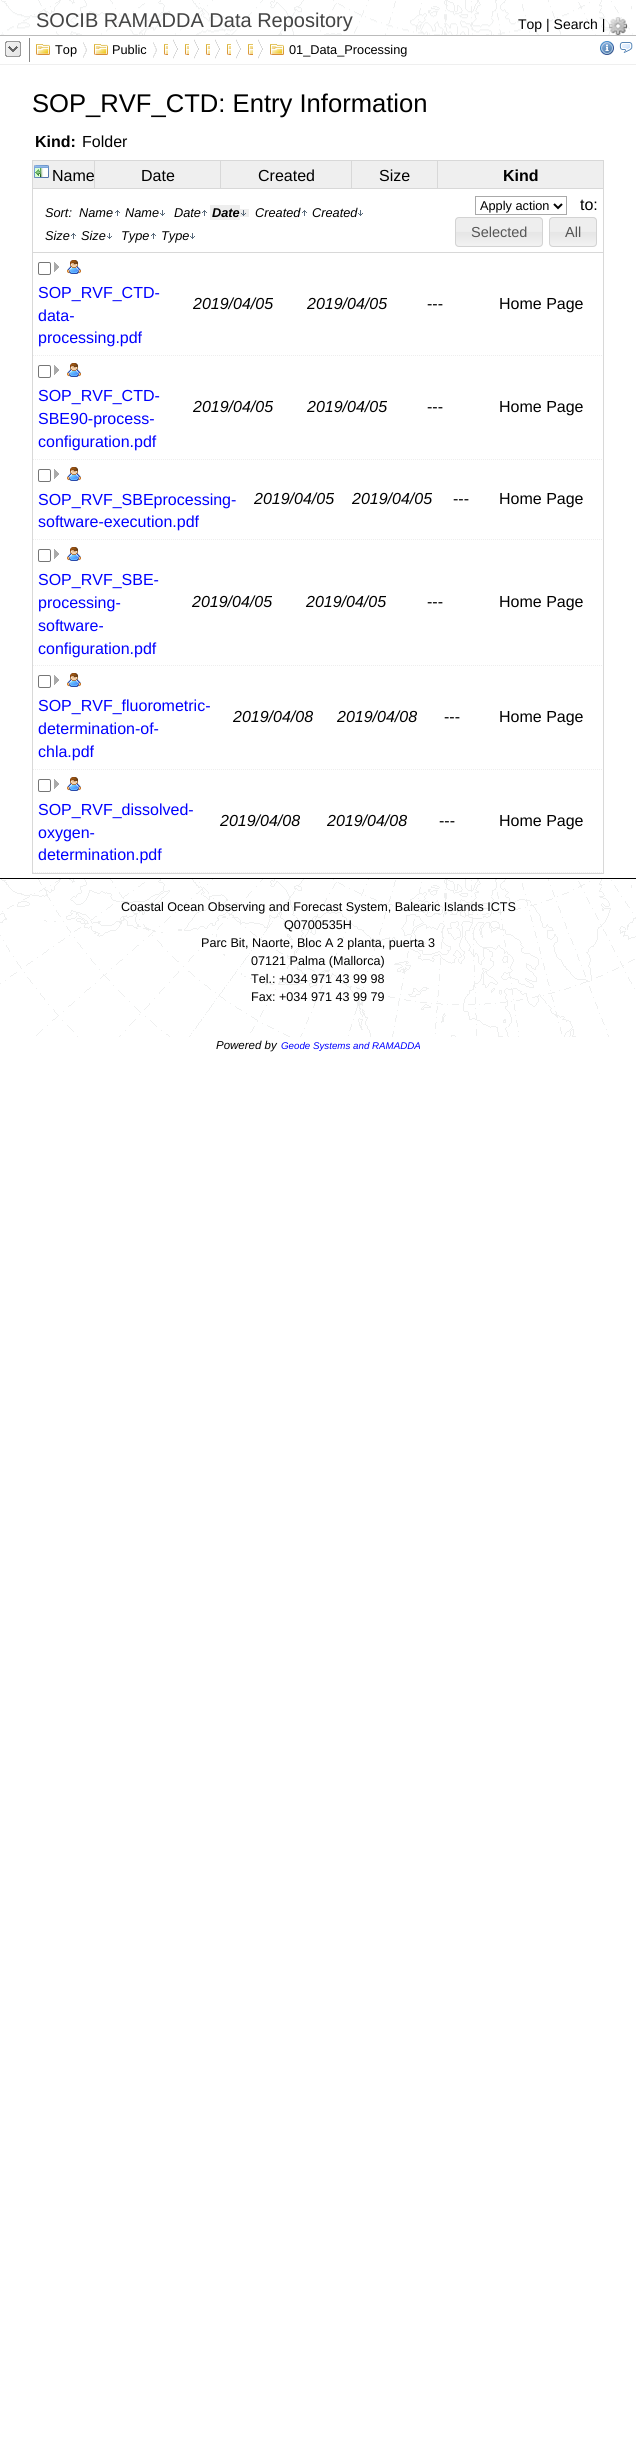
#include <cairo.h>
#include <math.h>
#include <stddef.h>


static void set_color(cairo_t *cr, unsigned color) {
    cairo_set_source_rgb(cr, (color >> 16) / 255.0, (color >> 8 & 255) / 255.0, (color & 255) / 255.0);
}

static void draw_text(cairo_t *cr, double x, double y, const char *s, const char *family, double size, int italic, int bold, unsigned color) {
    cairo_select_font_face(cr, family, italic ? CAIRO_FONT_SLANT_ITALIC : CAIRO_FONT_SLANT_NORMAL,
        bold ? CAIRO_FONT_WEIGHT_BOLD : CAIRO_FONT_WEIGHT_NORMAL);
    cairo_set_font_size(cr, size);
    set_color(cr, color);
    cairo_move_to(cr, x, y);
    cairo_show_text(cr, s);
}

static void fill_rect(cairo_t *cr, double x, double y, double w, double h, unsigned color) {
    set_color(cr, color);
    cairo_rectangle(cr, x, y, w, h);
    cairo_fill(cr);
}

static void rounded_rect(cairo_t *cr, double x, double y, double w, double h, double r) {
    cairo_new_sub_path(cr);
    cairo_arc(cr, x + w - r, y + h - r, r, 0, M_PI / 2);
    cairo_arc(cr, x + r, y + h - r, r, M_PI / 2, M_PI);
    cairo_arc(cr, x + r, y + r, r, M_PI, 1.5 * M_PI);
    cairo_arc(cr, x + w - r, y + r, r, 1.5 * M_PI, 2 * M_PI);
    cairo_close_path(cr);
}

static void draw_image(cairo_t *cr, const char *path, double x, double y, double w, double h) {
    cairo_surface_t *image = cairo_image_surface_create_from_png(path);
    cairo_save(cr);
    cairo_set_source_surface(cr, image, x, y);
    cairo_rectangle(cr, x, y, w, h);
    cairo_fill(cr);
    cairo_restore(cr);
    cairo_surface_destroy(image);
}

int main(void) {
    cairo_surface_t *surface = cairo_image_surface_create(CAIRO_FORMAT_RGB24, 636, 2459);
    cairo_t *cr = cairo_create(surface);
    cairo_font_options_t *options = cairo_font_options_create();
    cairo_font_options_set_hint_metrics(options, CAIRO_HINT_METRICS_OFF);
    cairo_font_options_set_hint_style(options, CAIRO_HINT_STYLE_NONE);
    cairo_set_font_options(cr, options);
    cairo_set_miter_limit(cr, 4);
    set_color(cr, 0xFFFFFF);
    cairo_paint(cr);
    draw_image(cr, "assets/img1.png", 0, 0, 633, 35);
    fill_rect(cr, 0, 35, 636, 1, 0xBBBBBB);
    draw_text(cr, 36, 27, "SOCIB RAMADDA Data Repository", "Liberation Sans", 20, 0, 0, 0x444444);
    draw_text(cr, 518, 29, "Top | Search |", "Liberation Sans", 14, 0, 0, 0x000000);
    draw_image(cr, "assets/img2.png", 609, 17, 18, 18);
    fill_rect(cr, 0, 64, 636, 1, 0xEFEFEF);
    fill_rect(cr, 29, 38, 1, 24, 0x888888);
    draw_image(cr, "assets/img3.png", 5, 41, 16, 16);
    draw_image(cr, "assets/img4.png", 83, 42, 4, 16);
    draw_image(cr, "assets/img5.png", 36, 44, 14, 11);
    draw_text(cr, 55, 54, "Top", "Liberation Sans", 12.75, 0, 0, 0x000000);
    draw_image(cr, "assets/img4.png", 153, 42, 4, 16);
    draw_image(cr, "assets/img5.png", 94, 44, 14, 11);
    draw_text(cr, 112, 54, "Public", "Liberation Sans", 12.75, 0, 0, 0x000000);
    draw_image(cr, "assets/img6.png", 164, 44, 4, 11);
    draw_image(cr, "assets/img7.png", 173, 39, 5, 20);
    draw_image(cr, "assets/img6.png", 185, 44, 4, 11);
    draw_image(cr, "assets/img7.png", 194, 39, 5, 20);
    draw_image(cr, "assets/img6.png", 206, 44, 4, 11);
    draw_image(cr, "assets/img7.png", 215, 39, 5, 20);
    draw_image(cr, "assets/img6.png", 227, 44, 4, 11);
    draw_image(cr, "assets/img7.png", 236, 39, 5, 20);
    draw_image(cr, "assets/img8.png", 248, 44, 5, 11);
    draw_image(cr, "assets/img7.png", 258, 39, 5, 20);
    draw_image(cr, "assets/img5.png", 270, 44, 14, 11);
    draw_text(cr, 289, 54, "01_Data_Processing", "Liberation Sans", 12.75, 0, 0, 0x000000);
    draw_image(cr, "assets/img9.png", 600, 41, 14, 14);
    draw_image(cr, "assets/img10.png", 619, 42, 14, 11);
    draw_text(cr, 32, 112, "SOP_RVF_CTD: Entry Information", "Liberation Sans", 25.6, 0, 0, 0x000000);
    draw_text(cr, 35, 147, "Kind:", "Liberation Sans", 16, 0, 1, 0x000000);
    draw_text(cr, 82, 147, "Folder", "Liberation Sans", 16, 0, 0, 0x000000);
    fill_rect(cr, 33, 161, 570, 27, 0xEFEFEF);
    fill_rect(cr, 32, 160, 572, 1, 0xD8D8D8);
    fill_rect(cr, 603, 160, 1, 714, 0xD8D8D8);
    fill_rect(cr, 32, 188, 572, 1, 0xD8D8D8);
    fill_rect(cr, 32, 160, 1, 29, 0xD8D8D8);
    draw_image(cr, "assets/img11.png", 34, 165, 15, 13);
    fill_rect(cr, 94, 160, 1, 29, 0xD8D8D8);
    draw_text(cr, 52, 181, "Name", "Liberation Sans", 16, 0, 0, 0x000000);
    fill_rect(cr, 220, 160, 1, 29, 0xD8D8D8);
    draw_text(cr, 141, 181, "Date", "Liberation Sans", 16, 0, 0, 0x000000);
    fill_rect(cr, 351, 160, 1, 29, 0xD8D8D8);
    draw_text(cr, 258, 181, "Created", "Liberation Sans", 16, 0, 0, 0x000000);
    fill_rect(cr, 437, 160, 1, 29, 0xD8D8D8);
    draw_text(cr, 379, 181, "Size", "Liberation Sans", 16, 0, 0, 0x000000);
    draw_text(cr, 503, 181, "Kind", "Liberation Sans", 16, 0, 1, 0x000000);
    fill_rect(cr, 32, 252, 572, 1, 0xD8D8D8);
    fill_rect(cr, 32, 189, 1, 64, 0xD8D8D8);
    draw_text(cr, 45, 217, "Sort:", "Liberation Sans", 12.75, 1, 0, 0x000000);
    draw_text(cr, 79, 217, "Name", "Liberation Sans", 12.75, 1, 0, 0x000000);
    draw_image(cr, "assets/img12.png", 115, 210, 5, 6);
    draw_text(cr, 125, 217, "Name", "Liberation Sans", 12.75, 1, 0, 0x000000);
    draw_image(cr, "assets/img13.png", 160, 210, 5, 6);
    draw_text(cr, 174, 217, "Date", "Liberation Sans", 12.75, 1, 0, 0x000000);
    draw_image(cr, "assets/img12.png", 202, 210, 5, 6);
    fill_rect(cr, 210, 205, 30, 15, 0xEEEEEE);
    draw_text(cr, 212, 217, "Date", "Liberation Sans", 12.75, 1, 1, 0x000000);
    fill_rect(cr, 240, 209, 9, 8, 0xEEEEEE);
    draw_image(cr, "assets/img14.png", 241, 210, 5, 6);
    draw_text(cr, 255, 217, "Created", "Liberation Sans", 12.75, 1, 0, 0x000000);
    draw_image(cr, "assets/img12.png", 302, 210, 5, 6);
    draw_text(cr, 312, 217, "Created", "Liberation Sans", 12.75, 1, 0, 0x000000);
    draw_image(cr, "assets/img13.png", 358, 210, 5, 6);
    draw_text(cr, 45, 240, "Size", "Liberation Sans", 12.75, 1, 0, 0x000000);
    draw_image(cr, "assets/img12.png", 71, 233, 5, 6);
    draw_text(cr, 81, 240, "Size", "Liberation Sans", 12.75, 1, 0, 0x000000);
    draw_image(cr, "assets/img13.png", 107, 233, 5, 6);
    draw_text(cr, 121, 240, "Type", "Liberation Sans", 12.75, 1, 0, 0x000000);
    draw_image(cr, "assets/img12.png", 151, 233, 5, 6);
    draw_text(cr, 161, 240, "Type", "Liberation Sans", 12.75, 1, 0, 0x000000);
    draw_image(cr, "assets/img13.png", 190, 233, 5, 6);
    cairo_rectangle(cr, 475.5, 196.5, 91, 18);
    set_color(cr, 0xAAAAAA);
    cairo_set_line_width(cr, 1);
    cairo_stroke(cr);
    cairo_new_path(cr);
    cairo_move_to(cr, 554, 204);
    cairo_line_to(cr, 558, 208);
    cairo_line_to(cr, 562, 204);
    set_color(cr, 0x000000);
    cairo_set_line_width(cr, 2);
    cairo_stroke(cr);
    draw_text(cr, 480, 210, "Apply action", "Liberation Sans", 12.75, 0, 0, 0x000000);
    draw_text(cr, 580, 210, "to:", "Liberation Sans", 16, 0, 0, 0x000000);
    draw_image(cr, "assets/img15.png", 455, 217, 88, 30);
    rounded_rect(cr, 455.5, 217.5, 87, 29, 3.5);
    set_color(cr, 0xD3D3D3);
    cairo_set_line_width(cr, 1);
    cairo_stroke(cr);
    draw_text(cr, 471, 237, "Selected", "Liberation Sans", 14.5, 0, 0, 0x555555);
    draw_image(cr, "assets/img16.png", 549, 217, 48, 30);
    rounded_rect(cr, 549.5, 217.5, 47, 29, 3.5);
    set_color(cr, 0xD3D3D3);
    cairo_stroke(cr);
    draw_text(cr, 565, 237, "All", "Liberation Sans", 14.5, 0, 0, 0x555555);
    fill_rect(cr, 32, 873, 572, 1, 0xD8D8D8);
    fill_rect(cr, 32, 253, 1, 621, 0xD8D8D8);
    cairo_new_path(cr);
    cairo_move_to(cr, 33, 355.5);
    cairo_line_to(cr, 603, 355.5);
    set_color(cr, 0xEEEEEE);
    cairo_set_dash(cr, (double[]){1, 1}, 2, 0);
    cairo_stroke(cr);
    rounded_rect(cr, 38.5, 262.5, 12, 12, 1.5);
    set_color(cr, 0x767676);
    cairo_set_dash(cr, NULL, 0, 0);
    cairo_stroke(cr);
    draw_image(cr, "assets/img17.png", 54, 262, 5, 10);
    draw_image(cr, "assets/img18.png", 67, 260, 14, 14);
    draw_text(cr, 38, 298, "SOP_RVF_CTD-", "Liberation Sans", 16, 0, 0, 0x0000FF);
    draw_text(cr, 38, 321, "data-", "Liberation Sans", 16, 0, 0, 0x0000FF);
    draw_text(cr, 38, 343, "processing.pdf", "Liberation Sans", 16, 0, 0, 0x0000FF);
    draw_text(cr, 193, 309, "2019/04/05", "Liberation Sans", 16, 1, 0, 0x000000);
    draw_text(cr, 307, 309, "2019/04/05", "Liberation Sans", 16, 1, 0, 0x000000);
    draw_text(cr, 427, 309, "---", "Liberation Sans", 16, 0, 0, 0x000000);
    draw_text(cr, 499, 309, "Home Page", "Liberation Sans", 16, 0, 0, 0x000000);
    cairo_new_path(cr);
    cairo_move_to(cr, 33, 459.5);
    cairo_line_to(cr, 603, 459.5);
    set_color(cr, 0xEEEEEE);
    cairo_set_dash(cr, (double[]){1, 1}, 2, 0);
    cairo_stroke(cr);
    rounded_rect(cr, 38.5, 365.5, 12, 12, 1.5);
    set_color(cr, 0x767676);
    cairo_set_dash(cr, NULL, 0, 0);
    cairo_stroke(cr);
    draw_image(cr, "assets/img17.png", 54, 365, 5, 10);
    draw_image(cr, "assets/img18.png", 67, 363, 14, 14);
    draw_text(cr, 38, 401, "SOP_RVF_CTD-", "Liberation Sans", 16, 0, 0, 0x0000FF);
    draw_text(cr, 38, 424, "SBE90-process-", "Liberation Sans", 16, 0, 0, 0x0000FF);
    draw_text(cr, 38, 447, "configuration.pdf", "Liberation Sans", 16, 0, 0, 0x0000FF);
    draw_text(cr, 193, 412, "2019/04/05", "Liberation Sans", 16, 1, 0, 0x000000);
    draw_text(cr, 307, 412, "2019/04/05", "Liberation Sans", 16, 1, 0, 0x000000);
    draw_text(cr, 427, 412, "---", "Liberation Sans", 16, 0, 0, 0x000000);
    draw_text(cr, 499, 412, "Home Page", "Liberation Sans", 16, 0, 0, 0x000000);
    cairo_new_path(cr);
    cairo_move_to(cr, 33, 539.5);
    cairo_line_to(cr, 603, 539.5);
    set_color(cr, 0xEEEEEE);
    cairo_set_dash(cr, (double[]){1, 1}, 2, 0);
    cairo_stroke(cr);
    rounded_rect(cr, 38.5, 469.5, 12, 12, 1.5);
    set_color(cr, 0x767676);
    cairo_set_dash(cr, NULL, 0, 0);
    cairo_stroke(cr);
    draw_image(cr, "assets/img17.png", 54, 469, 5, 10);
    draw_image(cr, "assets/img18.png", 67, 467, 14, 14);
    draw_text(cr, 38, 505, "SOP_RVF_SBEprocessing-", "Liberation Sans", 16, 0, 0, 0x0000FF);
    draw_text(cr, 38, 527, "software-execution.pdf", "Liberation Sans", 16, 0, 0, 0x0000FF);
    draw_text(cr, 254, 504, "2019/04/05", "Liberation Sans", 16, 1, 0, 0x000000);
    draw_text(cr, 352, 504, "2019/04/05", "Liberation Sans", 16, 1, 0, 0x000000);
    draw_text(cr, 453, 504, "---", "Liberation Sans", 16, 0, 0, 0x000000);
    draw_text(cr, 499, 504, "Home Page", "Liberation Sans", 16, 0, 0, 0x000000);
    cairo_new_path(cr);
    cairo_move_to(cr, 33, 665.5);
    cairo_line_to(cr, 603, 665.5);
    set_color(cr, 0xEEEEEE);
    cairo_set_dash(cr, (double[]){1, 1}, 2, 0);
    cairo_stroke(cr);
    rounded_rect(cr, 38.5, 549.5, 12, 12, 1.5);
    set_color(cr, 0x767676);
    cairo_set_dash(cr, NULL, 0, 0);
    cairo_stroke(cr);
    draw_image(cr, "assets/img17.png", 54, 549, 5, 10);
    draw_image(cr, "assets/img18.png", 67, 547, 14, 14);
    draw_text(cr, 38, 585, "SOP_RVF_SBE-", "Liberation Sans", 16, 0, 0, 0x0000FF);
    draw_text(cr, 38, 608, "processing-", "Liberation Sans", 16, 0, 0, 0x0000FF);
    draw_text(cr, 38, 631, "software-", "Liberation Sans", 16, 0, 0, 0x0000FF);
    draw_text(cr, 38, 654, "configuration.pdf", "Liberation Sans", 16, 0, 0, 0x0000FF);
    draw_text(cr, 192, 607, "2019/04/05", "Liberation Sans", 16, 1, 0, 0x000000);
    draw_text(cr, 306, 607, "2019/04/05", "Liberation Sans", 16, 1, 0, 0x000000);
    draw_text(cr, 427, 607, "---", "Liberation Sans", 16, 0, 0, 0x000000);
    draw_text(cr, 499, 607, "Home Page", "Liberation Sans", 16, 0, 0, 0x000000);
    cairo_new_path(cr);
    cairo_move_to(cr, 33, 769.5);
    cairo_line_to(cr, 603, 769.5);
    set_color(cr, 0xEEEEEE);
    cairo_set_dash(cr, (double[]){1, 1}, 2, 0);
    cairo_stroke(cr);
    rounded_rect(cr, 38.5, 675.5, 12, 12, 1.5);
    set_color(cr, 0x767676);
    cairo_set_dash(cr, NULL, 0, 0);
    cairo_stroke(cr);
    draw_image(cr, "assets/img17.png", 54, 675, 5, 10);
    draw_image(cr, "assets/img18.png", 67, 673, 14, 14);
    draw_text(cr, 38, 711, "SOP_RVF_fluorometric-", "Liberation Sans", 16, 0, 0, 0x0000FF);
    draw_text(cr, 38, 734, "determination-of-", "Liberation Sans", 16, 0, 0, 0x0000FF);
    draw_text(cr, 38, 757, "chla.pdf", "Liberation Sans", 16, 0, 0, 0x0000FF);
    draw_text(cr, 233, 722, "2019/04/08", "Liberation Sans", 16, 1, 0, 0x000000);
    draw_text(cr, 337, 722, "2019/04/08", "Liberation Sans", 16, 1, 0, 0x000000);
    draw_text(cr, 444, 722, "---", "Liberation Sans", 16, 0, 0, 0x000000);
    draw_text(cr, 499, 722, "Home Page", "Liberation Sans", 16, 0, 0, 0x000000);
    cairo_new_path(cr);
    cairo_move_to(cr, 33, 872.5);
    cairo_line_to(cr, 603, 872.5);
    set_color(cr, 0xEEEEEE);
    cairo_set_dash(cr, (double[]){1, 1}, 2, 0);
    cairo_stroke(cr);
    rounded_rect(cr, 38.5, 779.5, 12, 12, 1.5);
    set_color(cr, 0x767676);
    cairo_set_dash(cr, NULL, 0, 0);
    cairo_stroke(cr);
    draw_image(cr, "assets/img17.png", 54, 779, 5, 10);
    draw_image(cr, "assets/img18.png", 67, 777, 14, 14);
    draw_text(cr, 38, 815, "SOP_RVF_dissolved-", "Liberation Sans", 16, 0, 0, 0x0000FF);
    draw_text(cr, 38, 838, "oxygen-", "Liberation Sans", 16, 0, 0, 0x0000FF);
    draw_text(cr, 38, 860, "determination.pdf", "Liberation Sans", 16, 0, 0, 0x0000FF);
    draw_text(cr, 220, 826, "2019/04/08", "Liberation Sans", 16, 1, 0, 0x000000);
    draw_text(cr, 327, 826, "2019/04/08", "Liberation Sans", 16, 1, 0, 0x000000);
    draw_text(cr, 439, 826, "---", "Liberation Sans", 16, 0, 0, 0x000000);
    draw_text(cr, 499, 826, "Home Page", "Liberation Sans", 16, 0, 0, 0x000000);
    draw_image(cr, "assets/img19.png", 0, 879, 636, 158);
    fill_rect(cr, 0, 878, 636, 1, 0x000000);
    draw_text(cr, 121, 911, "Coastal Ocean Observing and Forecast System, Balearic Islands ICTS", "Liberation Sans", 12.6, 0, 0, 0x000000);
    draw_text(cr, 284, 929, "Q0700535H", "Liberation Sans", 12.6, 0, 0, 0x000000);
    draw_text(cr, 201, 947, "Parc Bit, Naorte, Bloc A 2 planta, puerta 3", "Liberation Sans", 12.6, 0, 0, 0x000000);
    draw_text(cr, 251, 965, "07121 Palma (Mallorca)", "Liberation Sans", 12.6, 0, 0, 0x000000);
    draw_text(cr, 251, 983, "Tel.: +034 971 43 99 98", "Liberation Sans", 12.6, 0, 0, 0x000000);
    draw_text(cr, 251, 1001, "Fax: +034 971 43 99 79", "Liberation Sans", 12.6, 0, 0, 0x000000);
    draw_text(cr, 216, 1049, "Powered by", "Liberation Sans", 11.5, 1, 0, 0x000000);
    draw_text(cr, 281, 1049, "Geode Systems and RAMADDA", "Liberation Sans", 9.75, 1, 0, 0x0000FF);
    cairo_surface_write_to_png(surface, "output.png");
    cairo_font_options_destroy(options);
    cairo_destroy(cr);
    cairo_surface_destroy(surface);
    return 0;
}
